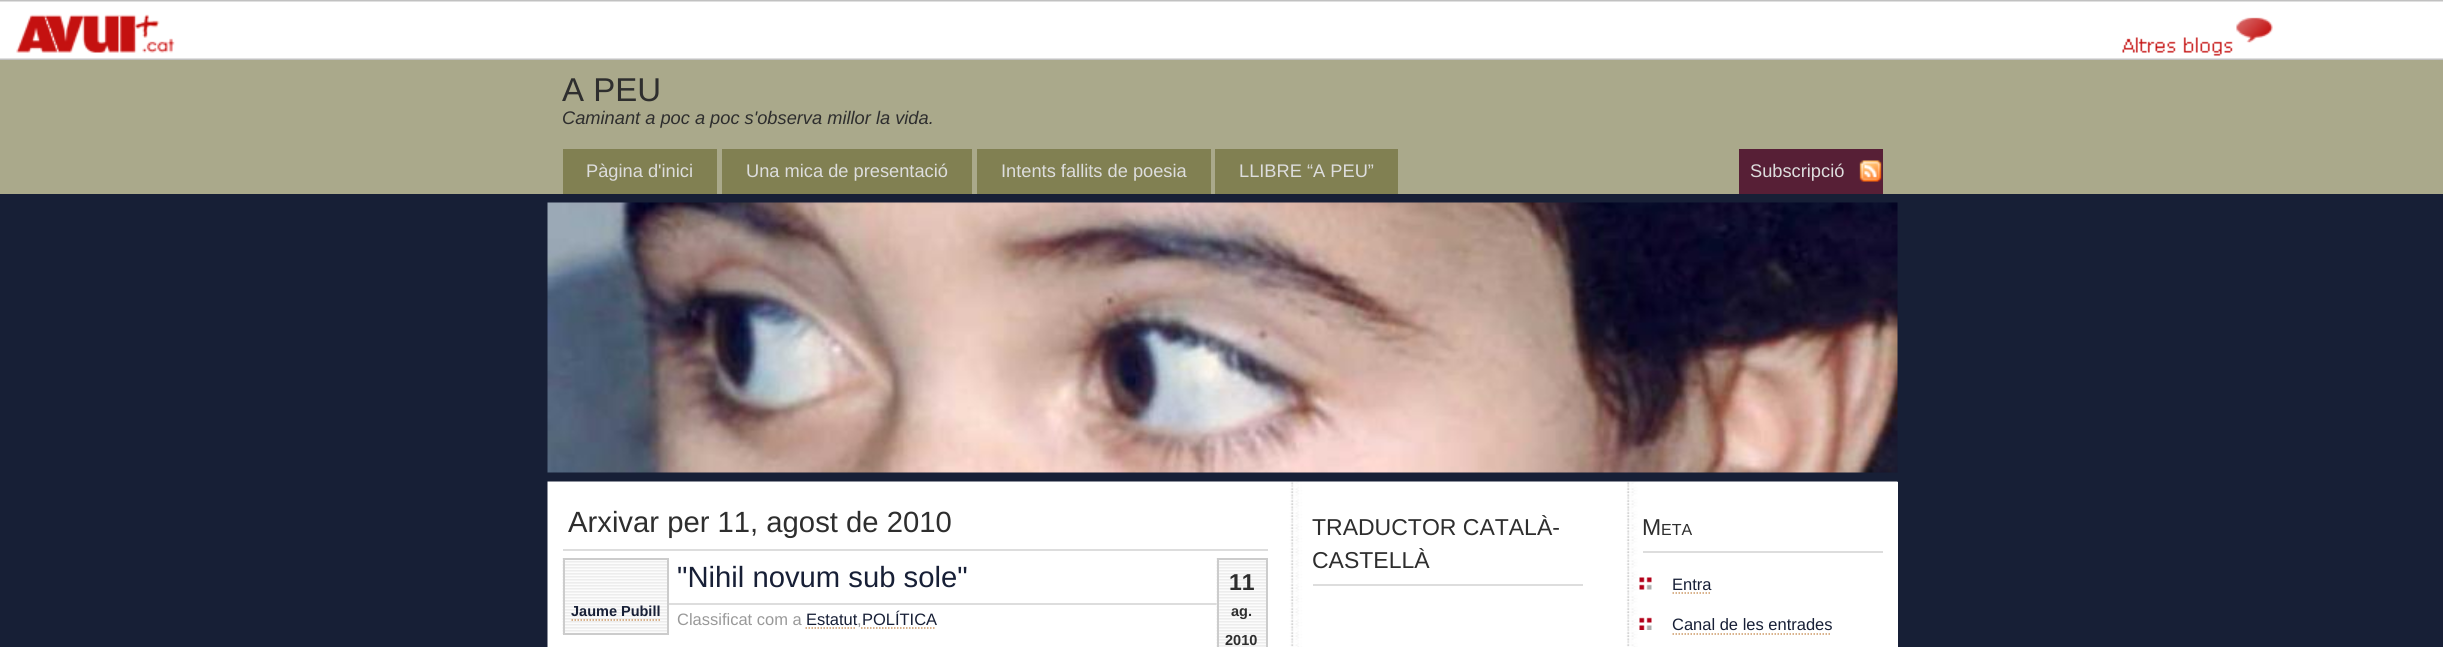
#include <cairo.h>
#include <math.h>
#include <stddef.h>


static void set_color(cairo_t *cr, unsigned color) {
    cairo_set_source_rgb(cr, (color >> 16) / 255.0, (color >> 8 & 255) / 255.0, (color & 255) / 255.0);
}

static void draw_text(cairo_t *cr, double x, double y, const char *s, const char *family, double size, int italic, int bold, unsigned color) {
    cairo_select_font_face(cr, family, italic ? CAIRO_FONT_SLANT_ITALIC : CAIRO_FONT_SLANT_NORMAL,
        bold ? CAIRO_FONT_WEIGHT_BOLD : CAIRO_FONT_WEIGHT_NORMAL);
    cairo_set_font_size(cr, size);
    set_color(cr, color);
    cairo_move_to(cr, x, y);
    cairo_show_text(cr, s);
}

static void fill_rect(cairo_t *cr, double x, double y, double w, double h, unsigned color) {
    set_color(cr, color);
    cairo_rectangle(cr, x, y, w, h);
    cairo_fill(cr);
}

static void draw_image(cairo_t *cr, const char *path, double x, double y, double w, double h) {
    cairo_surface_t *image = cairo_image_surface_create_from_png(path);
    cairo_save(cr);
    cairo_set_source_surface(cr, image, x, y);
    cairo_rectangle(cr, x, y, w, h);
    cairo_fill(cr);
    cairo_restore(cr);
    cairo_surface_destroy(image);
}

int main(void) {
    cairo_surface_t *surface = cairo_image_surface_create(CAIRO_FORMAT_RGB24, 2443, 647);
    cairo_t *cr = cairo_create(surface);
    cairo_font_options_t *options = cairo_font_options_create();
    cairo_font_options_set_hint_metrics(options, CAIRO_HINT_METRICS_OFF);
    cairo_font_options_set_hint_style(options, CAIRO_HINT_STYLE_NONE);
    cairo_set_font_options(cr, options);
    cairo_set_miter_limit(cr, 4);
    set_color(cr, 0x171F36);
    cairo_paint(cr);
    draw_image(cr, "assets/img1.png", 0, 0, 2443, 60);
    draw_image(cr, "assets/img2.png", 16, 14, 159, 39);
    draw_image(cr, "assets/img3.png", 2122, 17, 151, 39);
    fill_rect(cr, 0, 60, 2443, 134, 0xAAA98B);
    draw_text(cr, 562, 101, "A PEU", "Liberation Sans", 33, 0, 0, 0x2E2E2E);
    draw_text(cr, 562, 124, "Caminant a poc a poc s'observa millor la vida.", "Liberation Sans", 18.25, 1, 0, 0x2E2E2E);
    fill_rect(cr, 563, 149, 154, 45, 0x818052);
    draw_text(cr, 586, 177, "Pàgina d'inici", "Liberation Sans", 18.25, 0, 0, 0xDDDDDD);
    fill_rect(cr, 722, 149, 250, 45, 0x818052);
    draw_text(cr, 746, 177, "Una mica de presentació", "Liberation Sans", 18.25, 0, 0, 0xDDDDDD);
    fill_rect(cr, 977, 149, 234, 45, 0x818052);
    draw_text(cr, 1001, 177, "Intents fallits de poesia", "Liberation Sans", 18.25, 0, 0, 0xDDDDDD);
    fill_rect(cr, 1215, 149, 183, 45, 0x818052);
    draw_text(cr, 1239, 177, "LLIBRE “A PEU”", "Liberation Sans", 18.25, 0, 0, 0xDDDDDD);
    fill_rect(cr, 1739, 149, 144, 45, 0x571F36);
    draw_text(cr, 1750, 177, "Subscripció", "Liberation Sans", 18.25, 0, 0, 0xDDDDDD);
    draw_image(cr, "assets/img4.png", 1859, 160, 23, 22);
    draw_image(cr, "assets/img5.png", 547, 202, 1351, 271);
    fill_rect(cr, 1897, 482, 1, 165, 0xFFFFFF);
    draw_image(cr, "assets/img6.png", 547, 481, 1351, 166);
    fill_rect(cr, 563, 549, 705, 2, 0xDDDDDD);
    draw_text(cr, 568, 532, "Arxivar per 11, agost de 2010", "Liberation Sans", 29.25, 0, 0, 0x2E2E2E);
    draw_image(cr, "assets/img7.png", 562, 558, 105, 76);
    cairo_rectangle(cr, 564, 559, 104, 75);
    set_color(cr, 0xCCCCCC);
    cairo_stroke(cr);
    draw_text(cr, 571, 616, "Jaume Pubill", "Liberation Sans", 14.5, 0, 1, 0x171F36);
    cairo_new_path(cr);
    cairo_move_to(cr, 571.5, 620);
    cairo_line_to(cr, 660, 620);
    set_color(cr, 0xCC9966);
    cairo_set_line_width(cr, 1.5);
    cairo_set_dash(cr, (double[]){1.5, 1.5}, 2, 0);
    cairo_stroke(cr);
    fill_rect(cr, 669, 603, 548, 2, 0xDDDDDD);
    draw_text(cr, 677, 587, "\"Nihil novum sub sole\"", "Liberation Sans", 29.25, 0, 0, 0x171F36);
    draw_image(cr, "assets/img8.png", 1216, 558, 50, 89);
    cairo_rectangle(cr, 1218, 559, 49, 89);
    set_color(cr, 0xCCCCCC);
    cairo_set_line_width(cr, 2);
    cairo_set_dash(cr, NULL, 0, 0);
    cairo_stroke(cr);
    draw_text(cr, 1229, 590, "11", "Liberation Sans", 23, 0, 1, 0x2E2E2E);
    draw_text(cr, 1231, 616, "ag.", "Liberation Sans", 14.5, 0, 1, 0x2E2E2E);
    draw_text(cr, 1225, 645, "2010", "Liberation Sans", 14.5, 0, 1, 0x2E2E2E);
    draw_text(cr, 677, 625, "Classificat com a", "Liberation Sans", 16.5, 0, 0, 0x999999);
    draw_text(cr, 806, 625, "Estatut POLÍTICA", "Liberation Sans", 16.5, 0, 0, 0x171F36);
    cairo_new_path(cr);
    cairo_move_to(cr, 805.5, 628);
    cairo_line_to(cr, 856.5, 628);
    set_color(cr, 0xCC9966);
    cairo_set_line_width(cr, 1.5);
    cairo_set_dash(cr, (double[]){1.5, 1.5}, 2, 0);
    cairo_stroke(cr);
    draw_text(cr, 857, 625, ",", "Liberation Sans", 16.5, 0, 0, 0x999999);
    cairo_new_path(cr);
    cairo_move_to(cr, 861, 628);
    cairo_line_to(cr, 936, 628);
    set_color(cr, 0xCC9966);
    cairo_stroke(cr);
    fill_rect(cr, 1313, 584, 270, 2, 0xDDDDDD);
    draw_text(cr, 1312, 535, "TRADUCTOR CATALÀ-", "Liberation Sans", 23, 0, 0, 0x2E2E2E);
    draw_text(cr, 1312, 568, "CASTELLÀ", "Liberation Sans", 23, 0, 0, 0x2E2E2E);
    fill_rect(cr, 1643, 551, 240, 2, 0xDDDDDD);
    draw_text(cr, 1642, 535, "M", "Liberation Sans", 23, 0, 0, 0x2E2E2E);
    draw_text(cr, 1661, 535, "ETA", "Liberation Sans", 16, 0, 0, 0x2E2E2E);
    draw_image(cr, "assets/img9.png", 1639, 577, 13, 13);
    draw_text(cr, 1672, 590, "Entra", "Liberation Sans", 16.5, 0, 0, 0x171F36);
    cairo_new_path(cr);
    cairo_move_to(cr, 1672.5, 593);
    cairo_line_to(cr, 1711.5, 593);
    set_color(cr, 0xCC9966);
    cairo_stroke(cr);
    draw_image(cr, "assets/img10.png", 1639, 617, 13, 13);
    draw_text(cr, 1672, 630, "Canal de les entrades", "Liberation Sans", 16.5, 0, 0, 0x171F36);
    cairo_new_path(cr);
    cairo_move_to(cr, 1672.5, 634);
    cairo_line_to(cr, 1831.5, 634);
    set_color(cr, 0xCC9966);
    cairo_stroke(cr);
    cairo_surface_write_to_png(surface, "output.png");
    cairo_font_options_destroy(options);
    cairo_destroy(cr);
    cairo_surface_destroy(surface);
    return 0;
}
